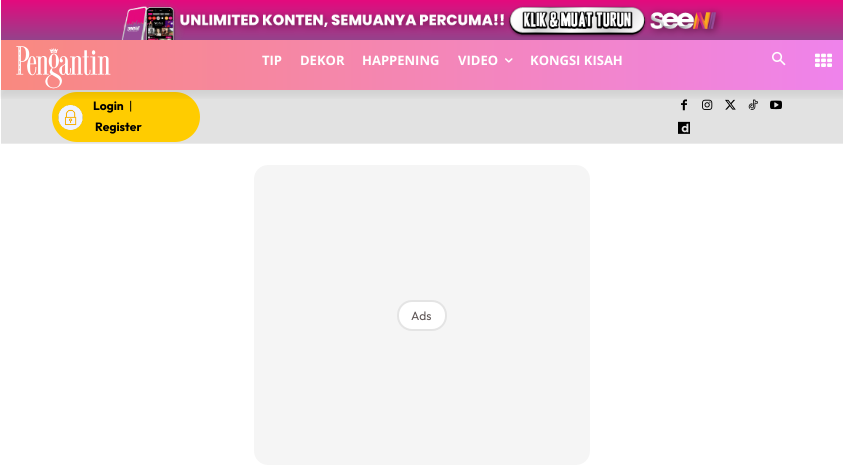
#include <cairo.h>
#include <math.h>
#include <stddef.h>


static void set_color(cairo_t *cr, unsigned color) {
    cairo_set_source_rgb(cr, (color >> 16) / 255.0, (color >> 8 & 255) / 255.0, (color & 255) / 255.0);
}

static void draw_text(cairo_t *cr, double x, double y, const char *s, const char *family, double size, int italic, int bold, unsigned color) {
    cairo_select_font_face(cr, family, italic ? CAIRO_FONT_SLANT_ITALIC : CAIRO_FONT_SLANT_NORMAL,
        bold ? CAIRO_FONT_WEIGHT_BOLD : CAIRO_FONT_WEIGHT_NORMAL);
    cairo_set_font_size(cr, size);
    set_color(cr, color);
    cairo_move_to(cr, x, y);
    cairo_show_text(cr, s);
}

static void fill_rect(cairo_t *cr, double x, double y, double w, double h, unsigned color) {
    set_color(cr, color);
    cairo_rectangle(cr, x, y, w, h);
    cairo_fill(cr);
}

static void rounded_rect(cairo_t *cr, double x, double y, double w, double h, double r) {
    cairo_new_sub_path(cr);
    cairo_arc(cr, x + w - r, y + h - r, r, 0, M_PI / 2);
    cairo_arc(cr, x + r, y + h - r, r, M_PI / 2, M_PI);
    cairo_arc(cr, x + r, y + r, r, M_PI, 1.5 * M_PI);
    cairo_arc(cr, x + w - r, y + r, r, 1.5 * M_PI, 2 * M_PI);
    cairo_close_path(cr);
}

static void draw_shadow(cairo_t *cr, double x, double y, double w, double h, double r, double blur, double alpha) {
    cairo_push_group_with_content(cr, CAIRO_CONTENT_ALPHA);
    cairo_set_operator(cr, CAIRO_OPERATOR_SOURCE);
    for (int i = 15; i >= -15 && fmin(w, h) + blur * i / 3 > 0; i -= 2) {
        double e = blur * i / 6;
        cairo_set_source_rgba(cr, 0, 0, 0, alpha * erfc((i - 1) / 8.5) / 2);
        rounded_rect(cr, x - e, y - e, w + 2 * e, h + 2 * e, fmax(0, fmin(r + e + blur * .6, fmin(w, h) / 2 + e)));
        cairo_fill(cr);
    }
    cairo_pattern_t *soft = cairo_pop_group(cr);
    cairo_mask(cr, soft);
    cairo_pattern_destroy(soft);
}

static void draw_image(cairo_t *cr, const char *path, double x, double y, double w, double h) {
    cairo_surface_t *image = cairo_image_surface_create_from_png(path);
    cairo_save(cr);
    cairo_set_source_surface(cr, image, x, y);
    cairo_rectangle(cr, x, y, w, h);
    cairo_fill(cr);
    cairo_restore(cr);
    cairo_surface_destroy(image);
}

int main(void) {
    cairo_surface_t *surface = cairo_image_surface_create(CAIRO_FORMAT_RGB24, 843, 468);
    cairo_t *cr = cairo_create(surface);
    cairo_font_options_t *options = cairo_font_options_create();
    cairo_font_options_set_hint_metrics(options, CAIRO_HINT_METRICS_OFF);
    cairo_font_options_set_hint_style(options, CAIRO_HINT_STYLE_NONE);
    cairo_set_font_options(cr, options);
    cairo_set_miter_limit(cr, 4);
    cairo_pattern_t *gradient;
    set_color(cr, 0xFFFFFF);
    cairo_paint(cr);
    gradient = cairo_pattern_create_linear(422, 40, 422, 0);
    cairo_pattern_add_color_stop_rgba(gradient, 0, 0.58, 0.259, 0.545, 1);
    cairo_pattern_add_color_stop_rgba(gradient, 1, 0.894, 0.035, 0.49, 1);
    cairo_set_source(cr, gradient);
    cairo_pattern_destroy(gradient);
    cairo_rectangle(cr, 1, 0, 842, 40);
    cairo_fill(cr);
    draw_image(cr, "assets/img1.png", 121, 0, 602, 40);
    gradient = cairo_pattern_create_linear(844, 65, 0.5, 65);
    cairo_pattern_add_color_stop_rgba(gradient, 0, 0.937, 0.514, 0.925, 1);
    cairo_pattern_add_color_stop_rgba(gradient, 1, 0.976, 0.537, 0.498, 1);
    cairo_set_source(cr, gradient);
    cairo_pattern_destroy(gradient);
    cairo_rectangle(cr, 1, 40, 842, 50);
    cairo_fill(cr);
    draw_image(cr, "assets/img2.png", 16, 46, 95, 43);
    draw_image(cr, "assets/img5.png", 815, 53, 17, 14);
    fill_rect(cr, 1, 90, 842, 53, 0xE2E2E2);
    set_color(cr, 0xFFCC00);
    rounded_rect(cr, 52, 92, 148, 50, 25);
    cairo_fill(cr);
    draw_image(cr, "assets/img6.png", 58, 105, 25, 25);
    draw_image(cr, "assets/img7.png", 681, 99, 6, 12);
    draw_image(cr, "assets/img8.png", 702, 99, 11, 11);
    draw_image(cr, "assets/img9.png", 725, 99, 11, 11);
    draw_image(cr, "assets/img10.png", 748, 99, 10, 11);
    draw_image(cr, "assets/img11.png", 770, 100, 12, 10);
    cairo_save(cr);
    cairo_rectangle(cr, 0, 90, 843, 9);
    cairo_clip(cr);
    set_color(cr, 0x000000);
    draw_shadow(cr, 1, 46, 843, 50, 0, 4, 0.08);
    cairo_restore(cr);
    draw_text(cr, 262, 65, "TIP", "Open Sans", 13, 0, 1, 0xFFFFFF);
    draw_text(cr, 300, 65, "DEKOR", "Open Sans", 13, 0, 1, 0xFFFFFF);
    draw_text(cr, 362, 65, "HAPPENING", "Open Sans", 13, 0, 1, 0xFFFFFF);
    draw_text(cr, 458, 65, "VIDEO", "Open Sans", 13, 0, 1, 0xFFFFFF);
    draw_image(cr, "assets/img3.png", 505, 58, 8, 5);
    draw_text(cr, 530, 65, "KONGSI KISAH", "Open Sans", 13, 0, 1, 0xFFFFFF);
    draw_image(cr, "assets/img4.png", 772, 51, 14, 15);
    fill_rect(cr, 1, 143, 842, 1, 0xEBEBEB);
    draw_text(cr, 93, 110, "Login", "Outfit", 12, 0, 1, 0x000000);
    draw_text(cr, 129, 110, "|", "Outfit", 12, 0, 0, 0x000000);
    draw_text(cr, 95, 131, "Register", "Outfit", 12, 0, 1, 0x000000);
    draw_image(cr, "assets/img12.png", 678, 121, 12, 13);
    set_color(cr, 0xF5F5F5);
    rounded_rect(cr, 254, 165, 336, 300, 14);
    cairo_fill(cr);
    set_color(cr, 0xFFFFFF);
    rounded_rect(cr, 398, 301, 48, 29, 14);
    cairo_fill_preserve(cr);
    set_color(cr, 0xE4E4E4);
    cairo_stroke(cr);
    draw_text(cr, 411, 320, "Ads", "Outfit", 12, 0, 0, 0x5D5555);
    cairo_surface_write_to_png(surface, "output.png");
    cairo_font_options_destroy(options);
    cairo_destroy(cr);
    cairo_surface_destroy(surface);
    return 0;
}
